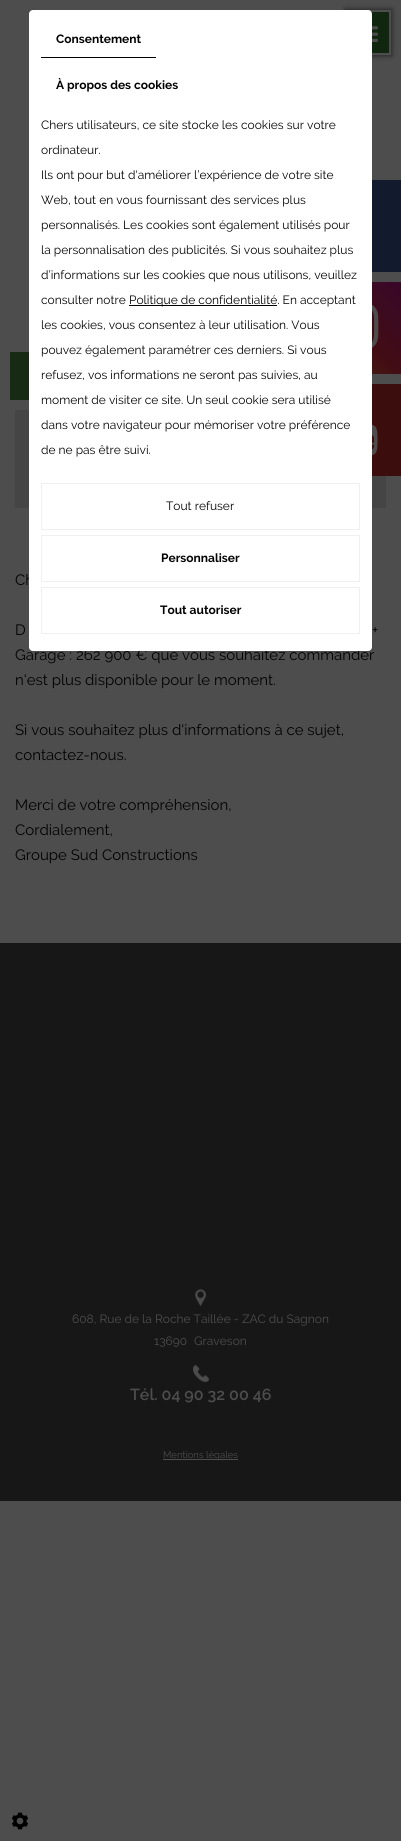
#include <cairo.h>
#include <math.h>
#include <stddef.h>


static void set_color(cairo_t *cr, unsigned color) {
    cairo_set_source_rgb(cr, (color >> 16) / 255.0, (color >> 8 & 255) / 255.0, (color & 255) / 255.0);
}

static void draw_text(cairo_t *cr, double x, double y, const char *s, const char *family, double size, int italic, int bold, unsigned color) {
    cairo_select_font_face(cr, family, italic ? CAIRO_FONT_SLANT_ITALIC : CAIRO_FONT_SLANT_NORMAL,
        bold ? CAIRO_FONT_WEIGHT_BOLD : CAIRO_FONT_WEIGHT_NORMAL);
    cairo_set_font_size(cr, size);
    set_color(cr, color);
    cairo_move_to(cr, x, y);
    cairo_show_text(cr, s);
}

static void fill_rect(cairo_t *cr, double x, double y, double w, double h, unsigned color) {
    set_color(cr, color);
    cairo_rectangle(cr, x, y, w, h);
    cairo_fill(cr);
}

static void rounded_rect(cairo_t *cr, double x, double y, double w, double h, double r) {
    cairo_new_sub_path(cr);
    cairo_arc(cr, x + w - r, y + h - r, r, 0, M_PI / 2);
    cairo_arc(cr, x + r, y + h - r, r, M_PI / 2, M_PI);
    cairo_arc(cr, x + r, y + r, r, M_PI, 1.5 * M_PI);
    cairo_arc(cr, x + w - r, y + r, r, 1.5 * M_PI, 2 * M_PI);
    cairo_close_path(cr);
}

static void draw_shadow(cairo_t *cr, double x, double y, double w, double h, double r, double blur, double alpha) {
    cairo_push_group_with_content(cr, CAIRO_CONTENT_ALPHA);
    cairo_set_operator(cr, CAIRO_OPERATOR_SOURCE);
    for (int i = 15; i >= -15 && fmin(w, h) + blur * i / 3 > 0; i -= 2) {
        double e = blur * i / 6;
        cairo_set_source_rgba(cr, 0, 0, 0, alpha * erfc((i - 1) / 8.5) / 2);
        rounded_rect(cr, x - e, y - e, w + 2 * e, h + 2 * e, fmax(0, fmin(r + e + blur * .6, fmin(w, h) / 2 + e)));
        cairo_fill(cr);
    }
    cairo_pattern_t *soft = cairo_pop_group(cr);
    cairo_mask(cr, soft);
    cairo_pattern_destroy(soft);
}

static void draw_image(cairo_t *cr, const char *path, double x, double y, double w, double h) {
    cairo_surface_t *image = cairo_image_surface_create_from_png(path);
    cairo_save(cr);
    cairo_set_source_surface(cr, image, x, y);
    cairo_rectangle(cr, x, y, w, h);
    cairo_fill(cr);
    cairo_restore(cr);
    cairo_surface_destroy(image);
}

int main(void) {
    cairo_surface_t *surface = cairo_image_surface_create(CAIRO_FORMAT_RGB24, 401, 1841);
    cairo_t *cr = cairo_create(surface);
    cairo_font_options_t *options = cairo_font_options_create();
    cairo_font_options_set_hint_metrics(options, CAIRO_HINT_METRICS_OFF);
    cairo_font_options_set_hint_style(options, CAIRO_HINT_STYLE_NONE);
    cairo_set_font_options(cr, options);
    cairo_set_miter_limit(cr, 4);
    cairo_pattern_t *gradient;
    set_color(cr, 0x4D4D4D);
    cairo_paint(cr);
    set_color(cr, 0x000000);
    draw_shadow(cr, 345, 9, 47, 47, 0, 2.5, 0.5);
    fill_rect(cr, 371, 12, 18, 41, 0x11260E);
    cairo_rectangle(cr, 347, 11, 43, 43);
    set_color(cr, 0x4D4D4D);
    cairo_stroke(cr);
    fill_rect(cr, 15, 410, 371, 98, 0x454545);
    draw_text(cr, 15, 585, "Ch", "Raleway", 15, 0, 0, 0x020202);
    draw_text(cr, 15, 660, "Garage : 262 900 € que vous souhaitez commander", "Raleway", 15, 0, 0, 0x020202);
    set_color(cr, 0xFFFFFF);
    rounded_rect(cr, 29, 10, 343, 641, 4);
    cairo_fill(cr);
    fill_rect(cr, 41, 57, 115, 1, 0x000000);
    draw_text(cr, 56, 43, "Consentement", "Raleway", 12, 0, 1, 0x020202);
    draw_text(cr, 56, 89, "À propos des cookies", "Raleway", 12, 0, 1, 0x020202);
    draw_text(cr, 41, 129, "Chers utilisateurs, ce site stocke les cookies sur votre", "Raleway", 12, 0, 0, 0x020202);
    draw_text(cr, 41, 154, "ordinateur.", "Raleway", 12, 0, 0, 0x020202);
    draw_text(cr, 41, 179, "Ils ont pour but d'améliorer l’expérience de votre site", "Raleway", 12, 0, 0, 0x020202);
    draw_text(cr, 41, 204, "Web, tout en vous fournissant des services plus", "Raleway", 12, 0, 0, 0x020202);
    draw_text(cr, 41, 229, "personnalisés. Les cookies sont également utilisés pour", "Raleway", 12, 0, 0, 0x020202);
    draw_text(cr, 41, 254, "la personnalisation des publicités. Si vous souhaitez plus", "Raleway", 12, 0, 0, 0x020202);
    draw_text(cr, 41, 279, "d’informations sur les cookies que nous utilisons, veuillez", "Raleway", 12, 0, 0, 0x020202);
    draw_text(cr, 41, 304, "consulter notre", "Raleway", 12, 0, 0, 0x020202);
    fill_rect(cr, 129, 305, 148, 1, 0x000000);
    draw_text(cr, 129, 304, "Politique de confidentialité. En acceptant", "Raleway", 12, 0, 0, 0x020202);
    draw_text(cr, 41, 329, "les cookies, vous consentez à leur utilisation. Vous", "Raleway", 12, 0, 0, 0x020202);
    draw_text(cr, 41, 354, "pouvez également paramétrer ces derniers. Si vous", "Raleway", 12, 0, 0, 0x020202);
    draw_text(cr, 41, 379, "refusez, vos informations ne seront pas suivies, au", "Raleway", 12, 0, 0, 0x020202);
    draw_text(cr, 41, 404, "moment de visiter ce site. Un seul cookie sera utilisé", "Raleway", 12, 0, 0, 0x020202);
    draw_text(cr, 41, 429, "dans votre navigateur pour mémoriser votre préférence", "Raleway", 12, 0, 0, 0x020202);
    draw_text(cr, 41, 454, "de ne pas être suivi.", "Raleway", 12, 0, 0, 0x020202);
    cairo_rectangle(cr, 41.5, 483.5, 318, 46);
    set_color(cr, 0xF0F0F0);
    cairo_set_line_width(cr, 1);
    cairo_stroke(cr);
    draw_text(cr, 166, 510, "Tout refuser", "Raleway", 12, 0, 0, 0x020202);
    cairo_rectangle(cr, 41.5, 535.5, 318, 46);
    set_color(cr, 0xF0F0F0);
    cairo_stroke(cr);
    draw_text(cr, 161, 562, "Personnaliser", "Raleway", 12, 0, 1, 0x020202);
    cairo_rectangle(cr, 41.5, 587.5, 318, 46);
    set_color(cr, 0xF0F0F0);
    cairo_stroke(cr);
    draw_text(cr, 160, 614, "Tout autoriser", "Raleway", 12, 0, 1, 0x020202);
    draw_image(cr, "assets/img1.png", 372, 26, 6, 16);
    fill_rect(cr, 372, 180, 29, 92, 0x121B2E);
    gradient = cairo_pattern_create_linear(309, 374, 401, 282);
    cairo_pattern_add_color_stop_rgba(gradient, 0, 0.282, 0.173, 0.059, 1);
    cairo_pattern_add_color_stop_rgba(gradient, 0.25, 0.271, 0.122, 0.071, 1);
    cairo_pattern_add_color_stop_rgba(gradient, 0.5, 0.259, 0.047, 0.078, 1);
    cairo_pattern_add_color_stop_rgba(gradient, 0.75, 0.239, 0.043, 0.122, 1);
    cairo_pattern_add_color_stop_rgba(gradient, 1, 0.22, 0.027, 0.161, 1);
    cairo_set_source(cr, gradient);
    cairo_pattern_destroy(gradient);
    cairo_rectangle(cr, 372, 282, 29, 92);
    cairo_fill(cr);
    draw_image(cr, "assets/img2.png", 372, 304, 7, 44);
    fill_rect(cr, 372, 384, 29, 92, 0x3B0E0D);
    draw_image(cr, "assets/img3.png", 372, 424, 6, 32);
    fill_rect(cr, 10, 352, 19, 48, 0x172A14);
    draw_text(cr, 15, 635, "D", "Raleway", 15, 0, 0, 0x020202);
    draw_text(cr, 372, 635, "+", "Raleway", 15, 0, 0, 0x020202);
    draw_text(cr, 15, 685, "n'est plus disponible pour le moment.", "Raleway", 15, 0, 0, 0x020202);
    draw_text(cr, 15, 735, "Si vous souhaitez plus d'informations à ce sujet,", "Raleway", 15, 0, 0, 0x020202);
    draw_text(cr, 15, 760, "contactez-nous.", "Raleway", 15, 0, 0, 0x020202);
    draw_text(cr, 15, 810, "Merci de votre compréhension,", "Raleway", 15, 0, 0, 0x020202);
    draw_text(cr, 15, 835, "Cordialement,", "Raleway", 15, 0, 0, 0x020202);
    draw_text(cr, 15, 860, "Groupe Sud Constructions", "Raleway", 15, 0, 0, 0x020202);
    fill_rect(cr, 0, 943, 401, 558, 0x171717);
    draw_image(cr, "assets/img4.png", 195, 1289, 11, 18);
    draw_text(cr, 72, 1323, "608, Rue de la Roche Taillée - ZAC du Sagnon", "Raleway", 12, 0, 0, 0x4D4D4D);
    draw_text(cr, 154, 1345, "13690", "Raleway", 12, 0, 0, 0x4D4D4D);
    draw_text(cr, 194, 1345, "Graveson", "Raleway", 12, 0, 0, 0x4D4D4D);
    draw_image(cr, "assets/img5.png", 193, 1365, 16, 17);
    draw_text(cr, 130, 1400, "Tél. 04 90 32 00 46", "Raleway SemiBold", 16, 0, 0, 0x4D4D4D);
    fill_rect(cr, 163, 1459, 75, 1, 0x4D4D4D);
    draw_text(cr, 163, 1458, "Mentions légales", "Raleway", 9.5, 0, 0, 0x4D4D4D);
    draw_image(cr, "assets/img6.png", 11, 1812, 18, 18);
    cairo_surface_write_to_png(surface, "output.png");
    cairo_font_options_destroy(options);
    cairo_destroy(cr);
    cairo_surface_destroy(surface);
    return 0;
}
